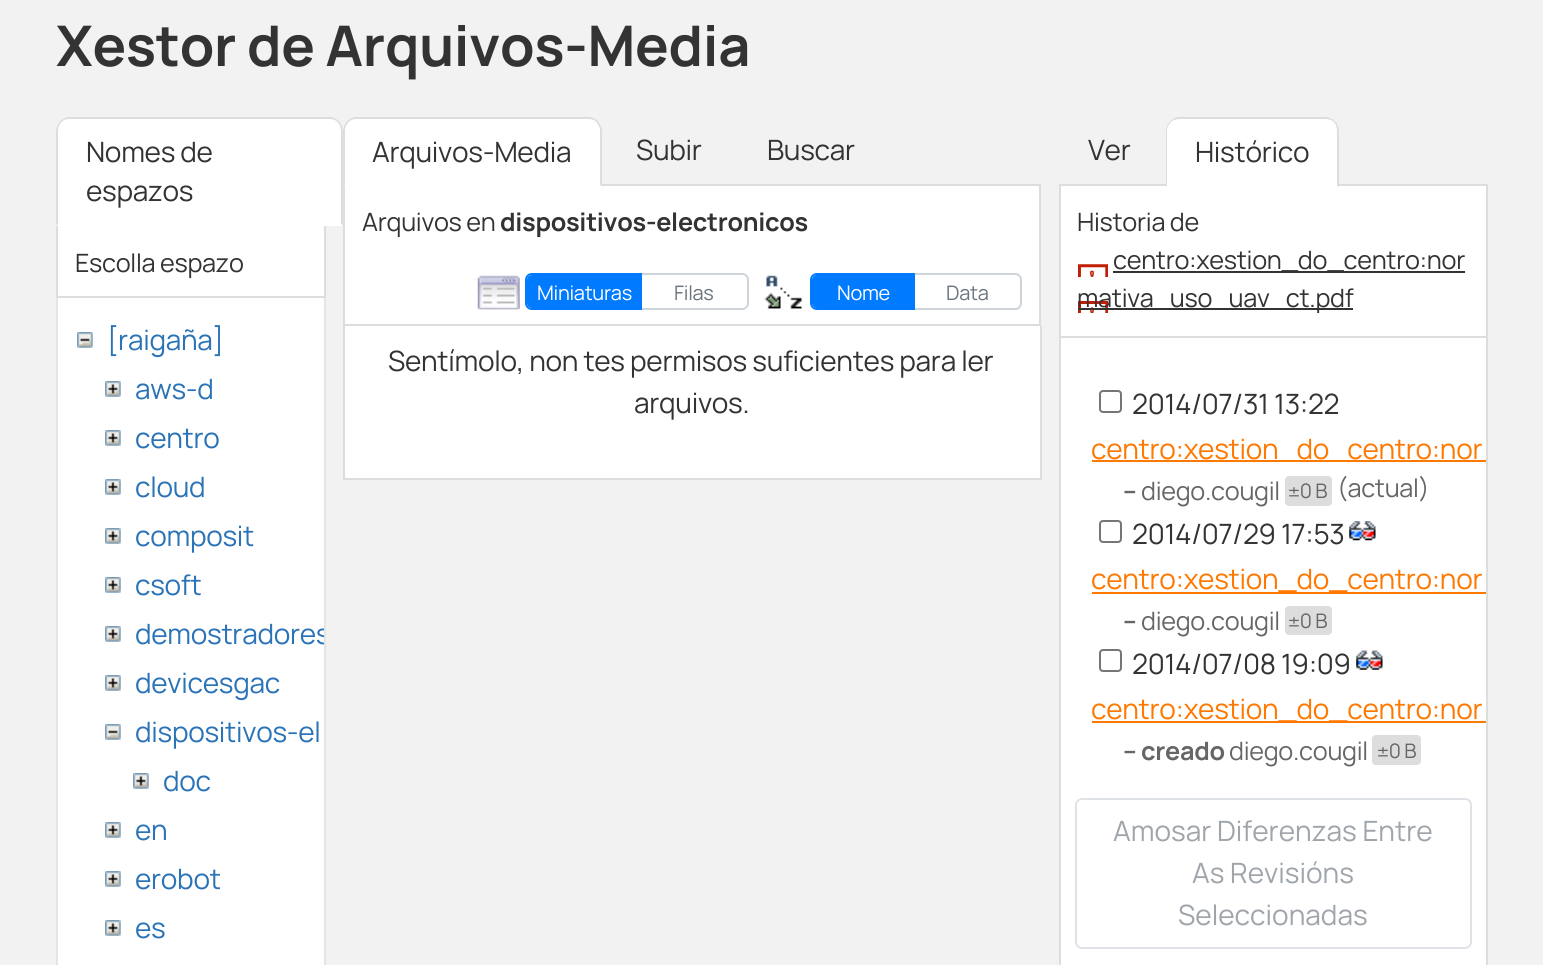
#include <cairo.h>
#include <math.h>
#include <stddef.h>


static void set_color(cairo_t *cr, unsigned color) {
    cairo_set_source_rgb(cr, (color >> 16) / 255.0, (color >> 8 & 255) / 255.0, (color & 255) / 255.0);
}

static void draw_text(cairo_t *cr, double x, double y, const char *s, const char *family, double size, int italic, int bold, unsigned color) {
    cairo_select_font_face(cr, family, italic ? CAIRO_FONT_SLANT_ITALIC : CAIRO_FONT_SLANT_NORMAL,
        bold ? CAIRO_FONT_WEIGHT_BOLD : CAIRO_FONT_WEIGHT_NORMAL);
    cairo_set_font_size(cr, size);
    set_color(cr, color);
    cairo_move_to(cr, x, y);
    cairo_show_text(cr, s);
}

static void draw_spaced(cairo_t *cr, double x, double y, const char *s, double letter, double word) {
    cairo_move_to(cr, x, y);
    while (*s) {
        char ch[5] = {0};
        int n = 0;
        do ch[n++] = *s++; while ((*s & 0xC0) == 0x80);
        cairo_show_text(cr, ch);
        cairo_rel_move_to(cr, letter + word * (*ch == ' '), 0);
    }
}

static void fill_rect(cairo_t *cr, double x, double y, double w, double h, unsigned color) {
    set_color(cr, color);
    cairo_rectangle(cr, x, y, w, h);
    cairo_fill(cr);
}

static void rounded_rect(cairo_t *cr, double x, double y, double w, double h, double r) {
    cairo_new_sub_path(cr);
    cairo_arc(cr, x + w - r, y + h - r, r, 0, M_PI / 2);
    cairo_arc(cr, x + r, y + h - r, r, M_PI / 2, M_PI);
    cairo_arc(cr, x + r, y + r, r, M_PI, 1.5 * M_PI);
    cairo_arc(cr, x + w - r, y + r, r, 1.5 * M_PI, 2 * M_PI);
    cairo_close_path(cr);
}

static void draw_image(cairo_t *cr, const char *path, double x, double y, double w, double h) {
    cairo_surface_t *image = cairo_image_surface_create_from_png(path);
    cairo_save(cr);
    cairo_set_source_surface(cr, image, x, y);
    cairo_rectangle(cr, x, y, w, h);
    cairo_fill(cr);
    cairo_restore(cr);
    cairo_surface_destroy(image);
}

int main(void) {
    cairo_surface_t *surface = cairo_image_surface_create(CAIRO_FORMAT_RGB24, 1543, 965);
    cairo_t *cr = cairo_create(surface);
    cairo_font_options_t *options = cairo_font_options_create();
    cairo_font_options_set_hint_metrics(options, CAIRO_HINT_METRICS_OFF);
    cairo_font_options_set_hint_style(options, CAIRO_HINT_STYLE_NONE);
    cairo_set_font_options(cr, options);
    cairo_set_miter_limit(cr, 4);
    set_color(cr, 0xF2F2F2);
    cairo_paint(cr);
    cairo_select_font_face(cr, "Manrope", CAIRO_FONT_SLANT_NORMAL, CAIRO_FONT_WEIGHT_BOLD);
    cairo_set_font_size(cr, 56);
    set_color(cr, 0x333333);
    draw_spaced(cr, 56, 66, "Xestor de Arquivos-Media", -0.3, 0);
    set_color(cr, 0xFFFFFF);
    cairo_rectangle(cr, 57, 225, 268, 72);
    cairo_fill_preserve(cr);
    set_color(cr, 0xDDDDDD);
    cairo_stroke(cr);
    set_color(cr, 0xFFFFFF);
    cairo_new_path(cr);
    cairo_move_to(cr, 70, 117);
    cairo_line_to(cr, 329, 117);
    cairo_curve_to(cr, 336.5, 117, 343, 123.5, 343, 131);
    cairo_line_to(cr, 343, 226);
    cairo_line_to(cr, 56, 226);
    cairo_line_to(cr, 56, 131);
    cairo_curve_to(cr, 56, 123.5, 62.5, 117, 70, 117);
    cairo_close_path(cr);
    cairo_fill(cr);
    set_color(cr, 0xDDDDDD);
    cairo_new_path(cr);
    cairo_move_to(cr, 70, 119);
    cairo_curve_to(cr, 66, 119, 63, 120, 61, 123);
    cairo_line_to(cr, 60, 121);
    cairo_curve_to(cr, 62, 119, 65, 118, 67, 117);
    cairo_line_to(cr, 332, 117);
    cairo_curve_to(cr, 334, 118, 337, 119, 339, 121);
    cairo_line_to(cr, 338, 123);
    cairo_curve_to(cr, 336, 120, 333, 119, 329, 119);
    cairo_close_path(cr);
    cairo_fill(cr);
    cairo_new_path(cr);
    cairo_move_to(cr, 343, 226);
    cairo_line_to(cr, 343, 131);
    cairo_curve_to(cr, 343, 127, 341, 124, 339, 121);
    cairo_line_to(cr, 338, 123);
    cairo_curve_to(cr, 340, 125, 341, 128, 341, 131);
    cairo_line_to(cr, 341, 224);
    cairo_close_path(cr);
    cairo_fill(cr);
    set_color(cr, 0xFFFFFF);
    cairo_new_path(cr);
    cairo_move_to(cr, 343, 226);
    cairo_line_to(cr, 56, 226);
    cairo_line_to(cr, 58, 224);
    cairo_line_to(cr, 341, 224);
    cairo_close_path(cr);
    cairo_fill(cr);
    set_color(cr, 0xDDDDDD);
    cairo_new_path(cr);
    cairo_move_to(cr, 56, 226);
    cairo_line_to(cr, 58, 224);
    cairo_line_to(cr, 58, 131);
    cairo_curve_to(cr, 58, 128, 59, 125, 61, 123);
    cairo_line_to(cr, 60, 121);
    cairo_curve_to(cr, 58, 124, 56, 127, 56, 131);
    cairo_close_path(cr);
    cairo_fill(cr);
    cairo_select_font_face(cr, "Manrope", CAIRO_FONT_SLANT_NORMAL, CAIRO_FONT_WEIGHT_NORMAL);
    cairo_set_font_size(cr, 28);
    set_color(cr, 0x333333);
    draw_spaced(cr, 86, 162, "Nomes de", -0.3, 0);
    draw_spaced(cr, 86, 201, "espazos", -0.3, 0);
    cairo_set_font_size(cr, 25.25);
    draw_spaced(cr, 75, 272, "Escolla espazo", -0.3, 0);
    fill_rect(cr, 58, 298, 266, 667, 0xFFFFFF);
    fill_rect(cr, 324, 298, 2, 667, 0xE5E5E5);
    fill_rect(cr, 56, 298, 2, 667, 0xE5E5E5);
    draw_image(cr, "assets/img1.png", 77, 332, 16, 16);
    cairo_set_font_size(cr, 28);
    set_color(cr, 0x2B73B7);
    draw_spaced(cr, 107, 350, "[raigaña]", -0.3, 0);
    draw_image(cr, "assets/img2.png", 105, 381, 16, 16);
    draw_spaced(cr, 135, 399, "aws-d", -0.3, 0);
    draw_image(cr, "assets/img2.png", 105, 430, 16, 16);
    draw_spaced(cr, 135, 448, "centro", -0.3, 0);
    draw_image(cr, "assets/img2.png", 105, 479, 16, 16);
    draw_spaced(cr, 135, 497, "cloud", -0.3, 0);
    draw_image(cr, "assets/img2.png", 105, 528, 16, 16);
    draw_spaced(cr, 135, 546, "composit", -0.3, 0);
    draw_image(cr, "assets/img2.png", 105, 577, 16, 16);
    draw_spaced(cr, 135, 595, "csoft", -0.3, 0);
    draw_image(cr, "assets/img2.png", 105, 626, 16, 16);
    cairo_save(cr);
    cairo_rectangle(cr, 58, 298, 266, 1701);
    cairo_clip(cr);
    draw_spaced(cr, 135, 644, "demostradores", -0.3, 0);
    cairo_restore(cr);
    draw_image(cr, "assets/img2.png", 105, 675, 16, 16);
    draw_spaced(cr, 135, 693, "devicesgac", -0.3, 0);
    draw_image(cr, "assets/img1.png", 105, 724, 16, 16);
    draw_spaced(cr, 135, 742, "dispositivos-el", -0.3, 0);
    draw_image(cr, "assets/img3.png", 133, 773, 16, 16);
    draw_spaced(cr, 163, 791, "doc", -0.3, 0);
    draw_image(cr, "assets/img2.png", 105, 822, 16, 16);
    draw_spaced(cr, 135, 840, "en", -0.3, 0);
    draw_image(cr, "assets/img2.png", 105, 871, 16, 16);
    draw_spaced(cr, 135, 889, "erobot", -0.3, 0);
    draw_image(cr, "assets/img2.png", 105, 920, 16, 16);
    draw_spaced(cr, 135, 938, "es", -0.3, 0);
    set_color(cr, 0xFFFFFF);
    cairo_rectangle(cr, 344, 185, 696, 140);
    cairo_fill_preserve(cr);
    set_color(cr, 0xDDDDDD);
    cairo_stroke(cr);
    set_color(cr, 0xFFFFFF);
    cairo_new_path(cr);
    cairo_move_to(cr, 357, 117);
    cairo_line_to(cr, 588, 117);
    cairo_curve_to(cr, 595.5, 117, 602, 123.5, 602, 131);
    cairo_line_to(cr, 602, 186);
    cairo_line_to(cr, 343, 186);
    cairo_line_to(cr, 343, 131);
    cairo_curve_to(cr, 343, 123.5, 349.5, 117, 357, 117);
    cairo_close_path(cr);
    cairo_fill(cr);
    set_color(cr, 0xDDDDDD);
    cairo_new_path(cr);
    cairo_move_to(cr, 357, 119);
    cairo_curve_to(cr, 353, 119, 350, 120, 348, 123);
    cairo_line_to(cr, 347, 121);
    cairo_curve_to(cr, 349, 119, 352, 118, 354, 117);
    cairo_line_to(cr, 591, 117);
    cairo_curve_to(cr, 593, 118, 596, 119, 598, 121);
    cairo_line_to(cr, 597, 123);
    cairo_curve_to(cr, 595, 120, 592, 119, 588, 119);
    cairo_close_path(cr);
    cairo_fill(cr);
    cairo_new_path(cr);
    cairo_move_to(cr, 602, 187);
    cairo_line_to(cr, 602, 131);
    cairo_curve_to(cr, 602, 127, 600, 124, 598, 121);
    cairo_line_to(cr, 597, 123);
    cairo_curve_to(cr, 599, 125, 600, 128, 600, 131);
    cairo_line_to(cr, 600, 185);
    cairo_close_path(cr);
    cairo_fill(cr);
    cairo_save(cr);
    cairo_rectangle(cr, 343, 116, 716, 70);
    cairo_clip(cr);
    set_color(cr, 0xFFFFFF);
    cairo_new_path(cr);
    cairo_move_to(cr, 602, 187);
    cairo_line_to(cr, 343, 187);
    cairo_line_to(cr, 345, 185);
    cairo_line_to(cr, 345, 186);
    cairo_line_to(cr, 600, 186);
    cairo_line_to(cr, 600, 185);
    cairo_close_path(cr);
    cairo_fill(cr);
    cairo_restore(cr);
    cairo_new_path(cr);
    cairo_move_to(cr, 343, 131);
    cairo_line_to(cr, 343, 187);
    cairo_line_to(cr, 345, 185);
    cairo_line_to(cr, 345, 131);
    cairo_curve_to(cr, 345, 128, 346, 125, 348, 123);
    cairo_line_to(cr, 347, 121);
    cairo_curve_to(cr, 345, 124, 343, 127, 343, 131);
    cairo_close_path(cr);
    cairo_fill(cr);
    set_color(cr, 0x333333);
    draw_spaced(cr, 372, 162, "Arquivos-Media", -0.3, 0);
    draw_spaced(cr, 636, 160, "Subir", -0.3, 0);
    draw_spaced(cr, 767, 160, "Buscar", -0.3, 0);
    cairo_set_font_size(cr, 25.25);
    draw_spaced(cr, 362, 231, "Arquivos en", -0.3, 0);
    cairo_select_font_face(cr, "Manrope", CAIRO_FONT_SLANT_NORMAL, CAIRO_FONT_WEIGHT_BOLD);
    draw_spaced(cr, 500, 231, "dispositivos-electronicos", -0.3, 0);
    draw_image(cr, "assets/img4.png", 477, 275, 43, 35);
    set_color(cr, 0x007BFF);
    cairo_new_path(cr);
    cairo_move_to(cr, 532, 275);
    cairo_line_to(cr, 642, 275);
    cairo_line_to(cr, 642, 308);
    cairo_line_to(cr, 532, 308);
    cairo_curve_to(cr, 529, 308, 527, 306, 527, 303);
    cairo_line_to(cr, 527, 280);
    cairo_curve_to(cr, 527, 277, 529, 275, 532, 275);
    cairo_close_path(cr);
    cairo_fill(cr);
    cairo_set_fill_rule(cr, CAIRO_FILL_RULE_EVEN_ODD);
    cairo_new_path(cr);
    cairo_move_to(cr, 532, 273);
    cairo_line_to(cr, 642, 273);
    cairo_line_to(cr, 642, 310);
    cairo_line_to(cr, 532, 310);
    cairo_curve_to(cr, 528, 310, 525, 307, 525, 303);
    cairo_line_to(cr, 525, 280);
    cairo_curve_to(cr, 525, 276, 528, 273, 532, 273);
    cairo_close_path(cr);
    cairo_move_to(cr, 532, 275);
    cairo_line_to(cr, 642, 275);
    cairo_line_to(cr, 642, 308);
    cairo_line_to(cr, 532, 308);
    cairo_curve_to(cr, 529, 308, 527, 306, 527, 303);
    cairo_line_to(cr, 527, 280);
    cairo_curve_to(cr, 527, 277, 529, 275, 532, 275);
    cairo_close_path(cr);
    cairo_fill(cr);
    cairo_select_font_face(cr, "Manrope", CAIRO_FONT_SLANT_NORMAL, CAIRO_FONT_WEIGHT_NORMAL);
    cairo_set_font_size(cr, 20);
    set_color(cr, 0xFFFFFF);
    draw_spaced(cr, 537, 300, "Miniaturas", -0.3, 0);
    set_color(cr, 0xCED4DA);
    cairo_new_path(cr);
    cairo_move_to(cr, 642, 273);
    cairo_line_to(cr, 742, 273);
    cairo_curve_to(cr, 746, 273, 749, 276, 749, 280);
    cairo_line_to(cr, 749, 303);
    cairo_curve_to(cr, 749, 307, 746, 310, 742, 310);
    cairo_line_to(cr, 642, 310);
    cairo_close_path(cr);
    cairo_move_to(cr, 642, 275);
    cairo_line_to(cr, 742, 275);
    cairo_curve_to(cr, 745, 275, 747, 277, 747, 280);
    cairo_line_to(cr, 747, 303);
    cairo_curve_to(cr, 747, 306, 745, 308, 742, 308);
    cairo_line_to(cr, 642, 308);
    cairo_close_path(cr);
    cairo_fill(cr);
    set_color(cr, 0x6C757D);
    draw_spaced(cr, 674, 300, "Filas", -0.3, 0);
    draw_image(cr, "assets/img5.png", 764, 275, 38, 34);
    set_color(cr, 0x007BFF);
    cairo_new_path(cr);
    cairo_move_to(cr, 817, 275);
    cairo_line_to(cr, 915, 275);
    cairo_line_to(cr, 915, 308);
    cairo_line_to(cr, 817, 308);
    cairo_curve_to(cr, 814, 308, 812, 306, 812, 303);
    cairo_line_to(cr, 812, 280);
    cairo_curve_to(cr, 812, 277, 814, 275, 817, 275);
    cairo_close_path(cr);
    cairo_fill(cr);
    cairo_new_path(cr);
    cairo_move_to(cr, 817, 273);
    cairo_line_to(cr, 915, 273);
    cairo_line_to(cr, 915, 310);
    cairo_line_to(cr, 817, 310);
    cairo_curve_to(cr, 813, 310, 810, 307, 810, 303);
    cairo_line_to(cr, 810, 280);
    cairo_curve_to(cr, 810, 276, 813, 273, 817, 273);
    cairo_close_path(cr);
    cairo_move_to(cr, 817, 275);
    cairo_line_to(cr, 915, 275);
    cairo_line_to(cr, 915, 308);
    cairo_line_to(cr, 817, 308);
    cairo_curve_to(cr, 814, 308, 812, 306, 812, 303);
    cairo_line_to(cr, 812, 280);
    cairo_curve_to(cr, 812, 277, 814, 275, 817, 275);
    cairo_close_path(cr);
    cairo_fill(cr);
    set_color(cr, 0xFFFFFF);
    draw_spaced(cr, 837, 300, "Nome", -0.3, 0);
    set_color(cr, 0xCED4DA);
    cairo_new_path(cr);
    cairo_move_to(cr, 915, 273);
    cairo_line_to(cr, 1015, 273);
    cairo_curve_to(cr, 1019, 273, 1022, 276, 1022, 280);
    cairo_line_to(cr, 1022, 303);
    cairo_curve_to(cr, 1022, 307, 1019, 310, 1015, 310);
    cairo_line_to(cr, 915, 310);
    cairo_close_path(cr);
    cairo_move_to(cr, 915, 275);
    cairo_line_to(cr, 1015, 275);
    cairo_curve_to(cr, 1018, 275, 1020, 277, 1020, 280);
    cairo_line_to(cr, 1020, 303);
    cairo_curve_to(cr, 1020, 306, 1018, 308, 1015, 308);
    cairo_line_to(cr, 915, 308);
    cairo_close_path(cr);
    cairo_fill(cr);
    set_color(cr, 0x6C757D);
    draw_spaced(cr, 946, 300, "Data", -0.3, 0);
    fill_rect(cr, 345, 326, 695, 152, 0xFFFFFF);
    fill_rect(cr, 1040, 326, 2, 154, 0xDDDDDD);
    fill_rect(cr, 343, 478, 698, 2, 0xDDDDDD);
    fill_rect(cr, 343, 326, 2, 154, 0xDDDDDD);
    cairo_set_font_size(cr, 28);
    set_color(cr, 0x333333);
    draw_spaced(cr, 388, 371, "Sentímolo, non tes permisos suficientes para ler", -0.3, 0);
    draw_spaced(cr, 634, 413, "arquivos.", -0.3, 0);
    draw_spaced(cr, 1088, 160, "Ver", -0.3, 0);
    set_color(cr, 0xFFFFFF);
    cairo_rectangle(cr, 1060, 185, 427, 152);
    cairo_fill_preserve(cr);
    set_color(cr, 0xDDDDDD);
    cairo_stroke(cr);
    set_color(cr, 0xFFFFFF);
    cairo_new_path(cr);
    cairo_move_to(cr, 1180, 117);
    cairo_line_to(cr, 1325, 117);
    cairo_curve_to(cr, 1332.5, 117, 1339, 123.5, 1339, 131);
    cairo_line_to(cr, 1339, 186);
    cairo_line_to(cr, 1166, 186);
    cairo_line_to(cr, 1166, 131);
    cairo_curve_to(cr, 1166, 123.5, 1172.5, 117, 1180, 117);
    cairo_close_path(cr);
    cairo_fill(cr);
    set_color(cr, 0xDDDDDD);
    cairo_set_fill_rule(cr, CAIRO_FILL_RULE_WINDING);
    cairo_new_path(cr);
    cairo_move_to(cr, 1180, 119);
    cairo_curve_to(cr, 1176, 119, 1173, 120, 1171, 122);
    cairo_line_to(cr, 1170, 122);
    cairo_curve_to(cr, 1172, 119, 1174, 118, 1177, 117);
    cairo_line_to(cr, 1327, 117);
    cairo_curve_to(cr, 1330, 118, 1333, 119, 1335, 121);
    cairo_line_to(cr, 1334, 122);
    cairo_curve_to(cr, 1332, 120, 1328, 119, 1325, 119);
    cairo_close_path(cr);
    cairo_fill(cr);
    cairo_new_path(cr);
    cairo_move_to(cr, 1339, 187);
    cairo_line_to(cr, 1337, 186);
    cairo_line_to(cr, 1337, 131);
    cairo_curve_to(cr, 1337, 128, 1336, 124, 1334, 122);
    cairo_line_to(cr, 1335, 121);
    cairo_curve_to(cr, 1337, 123, 1338, 126, 1339, 129);
    cairo_close_path(cr);
    cairo_fill(cr);
    cairo_new_path(cr);
    cairo_move_to(cr, 1166, 187);
    cairo_line_to(cr, 1166, 131);
    cairo_curve_to(cr, 1166, 128, 1167, 124, 1170, 122);
    cairo_line_to(cr, 1171, 122);
    cairo_curve_to(cr, 1168, 125, 1167, 128, 1167, 131);
    cairo_line_to(cr, 1167, 186);
    cairo_close_path(cr);
    cairo_fill(cr);
    set_color(cr, 0x333333);
    draw_spaced(cr, 1195, 162, "Histórico", -0.3, 0);
    cairo_set_font_size(cr, 25.25);
    draw_spaced(cr, 1077, 231, "Historia de", -0.3, 0);
    fill_rect(cr, 1113, 271, 352, 2, 0x333333);
    draw_spaced(cr, 1113, 269, "centro:xestion_do_centro:nor", -0.3, 0);
    draw_image(cr, "assets/img6.png", 1078, 264, 30, 49);
    fill_rect(cr, 1078, 308, 275, 2, 0x333333);
    draw_spaced(cr, 1077, 307, "mativa_uso_uav_ct.pdf", -0.3, 0);
    fill_rect(cr, 1061, 338, 425, 627, 0xFFFFFF);
    fill_rect(cr, 1486, 338, 2, 627, 0xDDDDDD);
    fill_rect(cr, 1059, 338, 2, 627, 0xDDDDDD);
    rounded_rect(cr, 1100, 391, 21, 21, 3);
    set_color(cr, 0x767676);
    cairo_stroke(cr);
    cairo_set_font_size(cr, 28);
    set_color(cr, 0x333333);
    draw_spaced(cr, 1132, 414, "2014/07/31 13:22", -0.3, 0);
    fill_rect(cr, 1092, 460, 394, 2, 0xFF7800);
    draw_spaced(cr, 1091, 459, "centro:xestion_do_centro:nor", -0.3, 0);
    cairo_select_font_face(cr, "Manrope", CAIRO_FONT_SLANT_NORMAL, CAIRO_FONT_WEIGHT_BOLD);
    cairo_set_font_size(cr, 25.25);
    set_color(cr, 0x666666);
    draw_spaced(cr, 1123, 500, "–", -0.3, 0);
    cairo_select_font_face(cr, "Manrope", CAIRO_FONT_SLANT_NORMAL, CAIRO_FONT_WEIGHT_NORMAL);
    draw_spaced(cr, 1141, 500, "diego.cougil", -0.3, 0);
    set_color(cr, 0xDDDDDD);
    rounded_rect(cr, 1285, 476, 47, 30, 4);
    cairo_fill(cr);
    cairo_set_font_size(cr, 20);
    set_color(cr, 0x666666);
    draw_spaced(cr, 1288, 498, "±0 B", -0.3, 0);
    cairo_set_font_size(cr, 25.25);
    draw_spaced(cr, 1337, 497, "(actual)", -0.3, 0);
    rounded_rect(cr, 1100, 521, 21, 21, 3);
    set_color(cr, 0x767676);
    cairo_stroke(cr);
    cairo_set_font_size(cr, 28);
    set_color(cr, 0x333333);
    draw_spaced(cr, 1132, 544, "2014/07/29 17:53", -0.3, 0);
    draw_image(cr, "assets/img7.png", 1349, 521, 27, 20);
    set_color(cr, 0xFF7800);
    draw_spaced(cr, 1091, 589, "centro:xestion_do_centro:nor", -0.3, 0);
    fill_rect(cr, 1092, 592, 394, 2, 0xFF7800);
    cairo_select_font_face(cr, "Manrope", CAIRO_FONT_SLANT_NORMAL, CAIRO_FONT_WEIGHT_BOLD);
    cairo_set_font_size(cr, 25.25);
    set_color(cr, 0x666666);
    draw_spaced(cr, 1123, 630, "–", -0.3, 0);
    cairo_select_font_face(cr, "Manrope", CAIRO_FONT_SLANT_NORMAL, CAIRO_FONT_WEIGHT_NORMAL);
    draw_spaced(cr, 1141, 630, "diego.cougil", -0.3, 0);
    set_color(cr, 0xDDDDDD);
    rounded_rect(cr, 1285, 606, 47, 29, 4);
    cairo_fill(cr);
    cairo_set_font_size(cr, 20);
    set_color(cr, 0x666666);
    draw_spaced(cr, 1288, 628, "±0 B", -0.3, 0);
    rounded_rect(cr, 1100, 650, 21, 21, 3);
    set_color(cr, 0x767676);
    cairo_stroke(cr);
    cairo_set_font_size(cr, 28);
    set_color(cr, 0x333333);
    draw_spaced(cr, 1132, 674, "2014/07/08 19:09", -0.3, 0);
    draw_image(cr, "assets/img8.png", 1356, 650, 27, 20);
    fill_rect(cr, 1092, 721, 394, 2, 0xFF7800);
    draw_spaced(cr, 1091, 719, "centro:xestion_do_centro:nor", -0.3, 0);
    cairo_select_font_face(cr, "Manrope", CAIRO_FONT_SLANT_NORMAL, CAIRO_FONT_WEIGHT_BOLD);
    cairo_set_font_size(cr, 25.25);
    set_color(cr, 0x666666);
    draw_spaced(cr, 1123, 760, "– creado", -0.3, 0);
    cairo_select_font_face(cr, "Manrope", CAIRO_FONT_SLANT_NORMAL, CAIRO_FONT_WEIGHT_NORMAL);
    draw_spaced(cr, 1229, 760, "diego.cougil", -0.3, 0);
    set_color(cr, 0xDDDDDD);
    rounded_rect(cr, 1372, 735, 49, 30, 4);
    cairo_fill(cr);
    cairo_set_font_size(cr, 20);
    set_color(cr, 0x666666);
    draw_spaced(cr, 1377, 758, "±0 B", -0.3, 0);
    rounded_rect(cr, 1076, 799, 395, 149, 6);
    set_color(cr, 0xDFE3E7);
    cairo_stroke(cr);
    draw_text(cr, 1113, 841, "Amosar Diferenzas Entre", "Manrope", 28, 0, 0, 0x9FA5AB);
    draw_text(cr, 1192, 883, "As Revisións", "Manrope", 28, 0, 0, 0x9FA5AB);
    draw_text(cr, 1178, 925, "Seleccionadas", "Manrope", 28, 0, 0, 0x9FA5AB);
    cairo_surface_write_to_png(surface, "output.png");
    cairo_font_options_destroy(options);
    cairo_destroy(cr);
    cairo_surface_destroy(surface);
    return 0;
}
